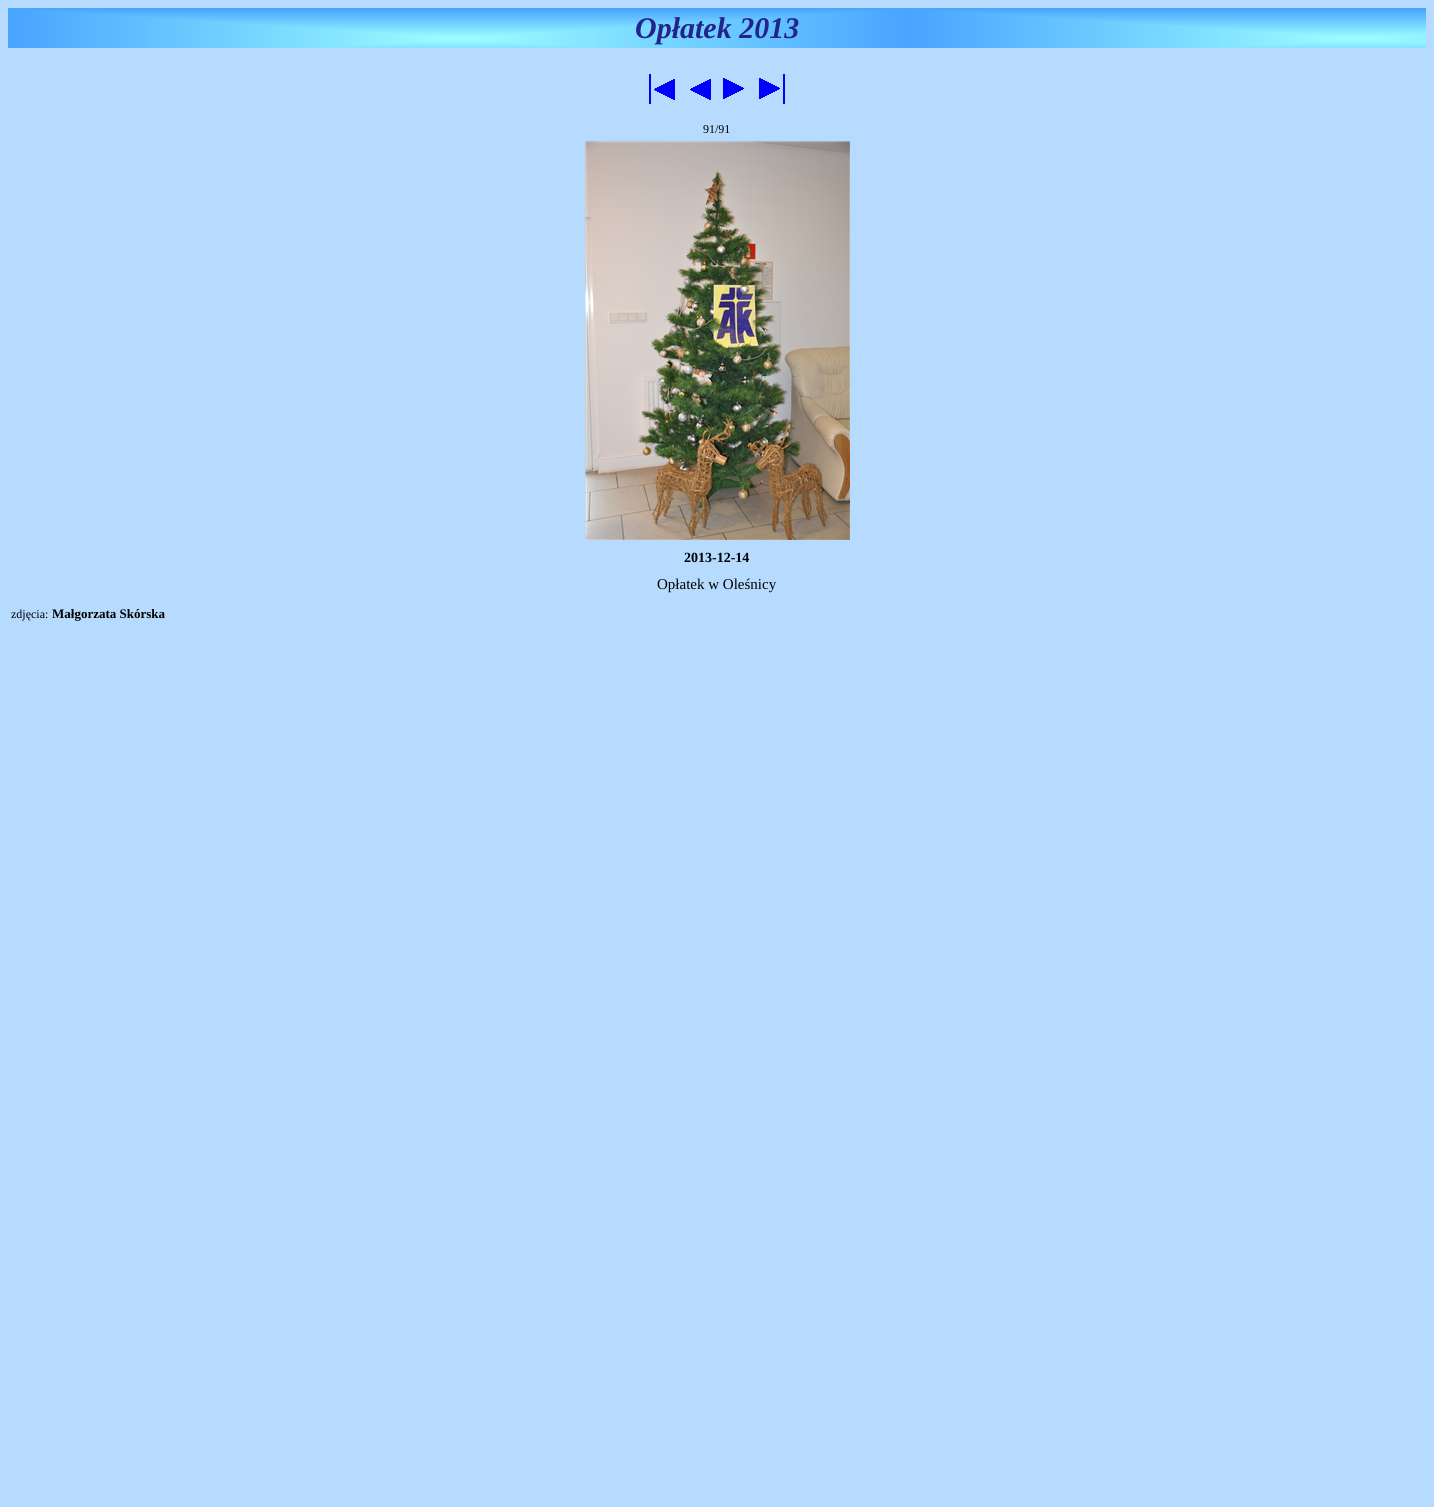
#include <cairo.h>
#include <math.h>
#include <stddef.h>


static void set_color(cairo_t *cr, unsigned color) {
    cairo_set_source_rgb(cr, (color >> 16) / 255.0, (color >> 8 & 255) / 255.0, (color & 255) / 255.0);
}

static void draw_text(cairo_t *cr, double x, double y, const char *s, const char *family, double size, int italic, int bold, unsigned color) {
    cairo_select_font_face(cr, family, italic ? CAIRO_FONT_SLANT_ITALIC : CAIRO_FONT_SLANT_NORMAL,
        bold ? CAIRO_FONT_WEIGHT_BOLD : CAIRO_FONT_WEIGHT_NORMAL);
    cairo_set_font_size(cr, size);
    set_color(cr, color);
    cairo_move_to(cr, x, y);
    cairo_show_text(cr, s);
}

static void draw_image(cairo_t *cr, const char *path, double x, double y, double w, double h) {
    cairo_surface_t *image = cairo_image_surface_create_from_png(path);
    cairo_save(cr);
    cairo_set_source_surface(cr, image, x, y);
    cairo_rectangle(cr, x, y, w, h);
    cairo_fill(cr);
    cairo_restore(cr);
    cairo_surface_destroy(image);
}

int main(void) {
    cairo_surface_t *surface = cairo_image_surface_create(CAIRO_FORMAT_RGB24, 1434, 1507);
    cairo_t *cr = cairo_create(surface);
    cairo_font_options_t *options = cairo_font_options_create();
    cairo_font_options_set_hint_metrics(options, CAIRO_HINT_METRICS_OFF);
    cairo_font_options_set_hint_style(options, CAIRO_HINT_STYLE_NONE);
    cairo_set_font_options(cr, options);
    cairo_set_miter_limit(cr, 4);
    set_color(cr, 0xB7DBFF);
    cairo_paint(cr);
    draw_image(cr, "assets/img1.png", 8, 8, 1418, 40);
    draw_text(cr, 635, 38, "Opłatek 2013", "Liberation Serif", 30, 1, 1, 0x23238E);
    draw_image(cr, "assets/img2.png", 649, 74, 26, 30);
    draw_image(cr, "assets/img3.png", 690, 79, 21, 21);
    draw_image(cr, "assets/img4.png", 723, 78, 21, 21);
    draw_image(cr, "assets/img5.png", 759, 74, 26, 30);
    draw_text(cr, 703, 133, "91/91", "Liberation Serif", 12, 0, 0, 0x000000);
    draw_image(cr, "assets/img6.png", 585, 141, 265, 399);
    draw_text(cr, 684, 562, "2013-12-14", "Liberation Serif", 14, 0, 1, 0x000000);
    draw_text(cr, 657, 589, "Opłatek w Oleśnicy", "Liberation Serif", 15, 0, 0, 0x000000);
    draw_text(cr, 11, 618, "zdjęcia:", "Liberation Serif", 12, 0, 0, 0x000000);
    draw_text(cr, 52, 618, "Małgorzata Skórska", "Liberation Serif", 13, 0, 1, 0x000000);
    cairo_surface_write_to_png(surface, "output.png");
    cairo_font_options_destroy(options);
    cairo_destroy(cr);
    cairo_surface_destroy(surface);
    return 0;
}
